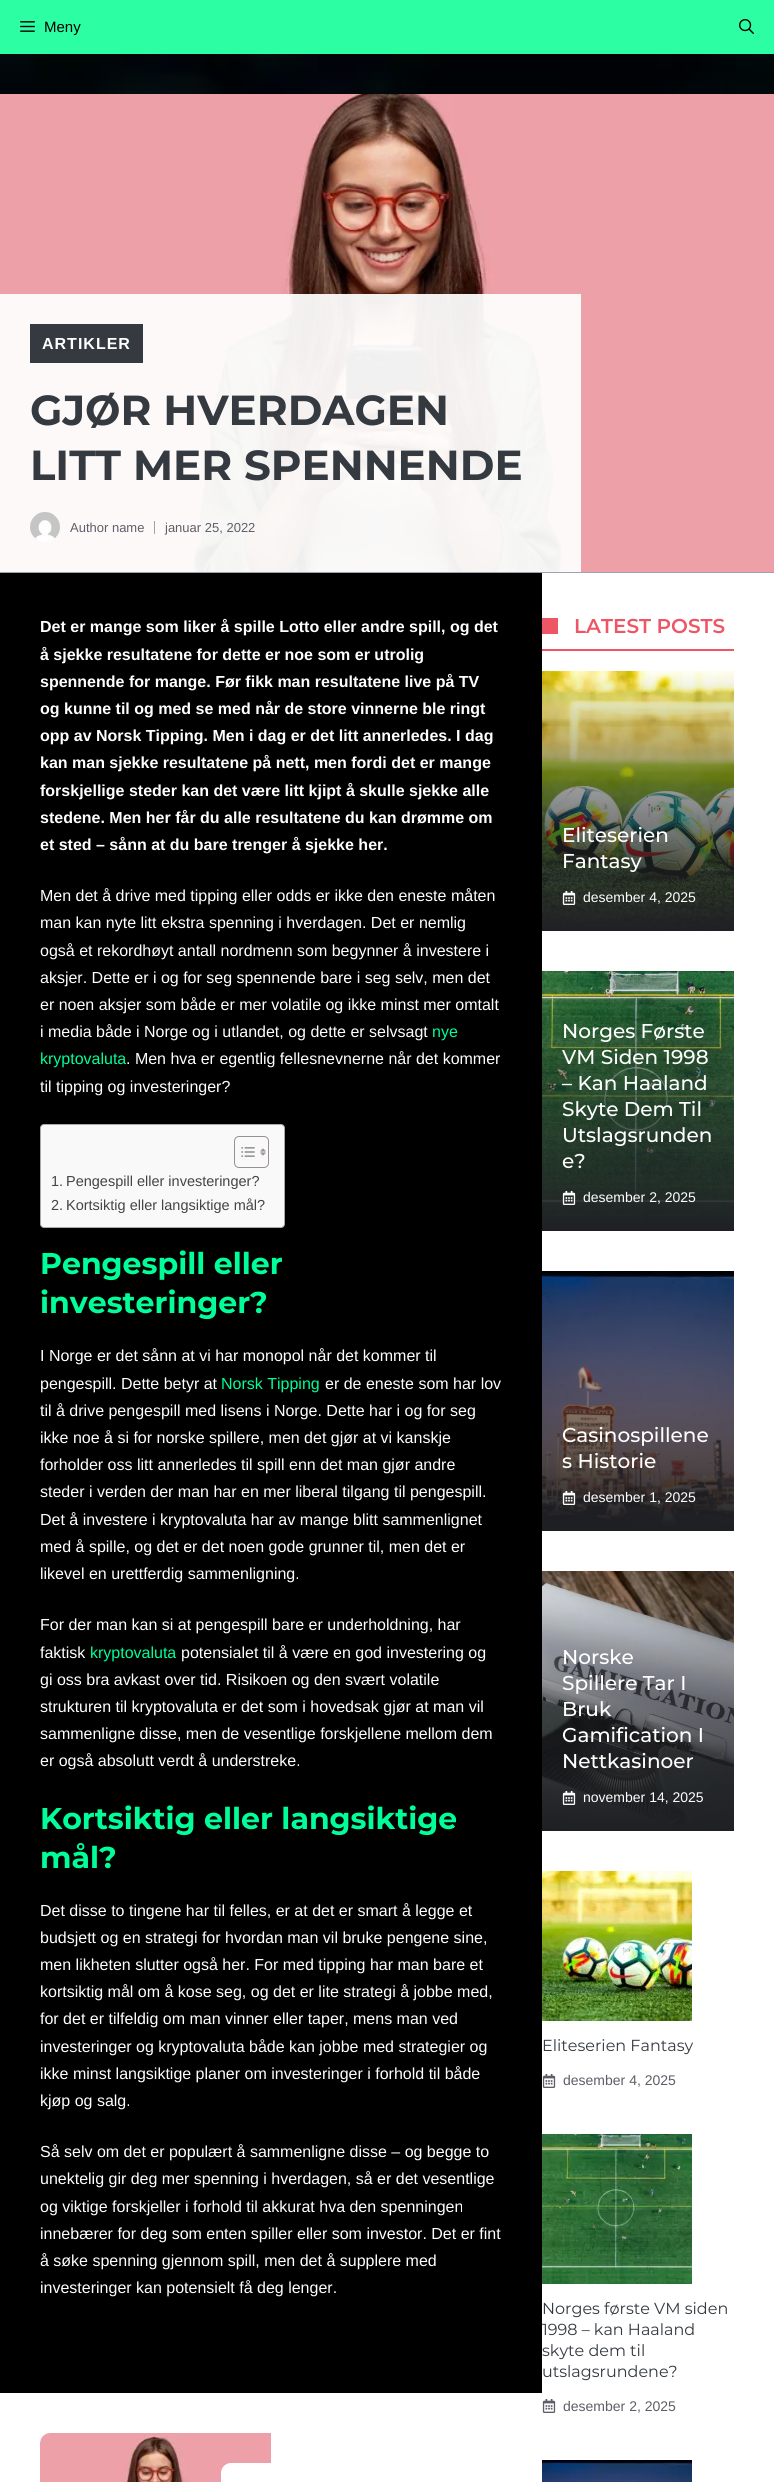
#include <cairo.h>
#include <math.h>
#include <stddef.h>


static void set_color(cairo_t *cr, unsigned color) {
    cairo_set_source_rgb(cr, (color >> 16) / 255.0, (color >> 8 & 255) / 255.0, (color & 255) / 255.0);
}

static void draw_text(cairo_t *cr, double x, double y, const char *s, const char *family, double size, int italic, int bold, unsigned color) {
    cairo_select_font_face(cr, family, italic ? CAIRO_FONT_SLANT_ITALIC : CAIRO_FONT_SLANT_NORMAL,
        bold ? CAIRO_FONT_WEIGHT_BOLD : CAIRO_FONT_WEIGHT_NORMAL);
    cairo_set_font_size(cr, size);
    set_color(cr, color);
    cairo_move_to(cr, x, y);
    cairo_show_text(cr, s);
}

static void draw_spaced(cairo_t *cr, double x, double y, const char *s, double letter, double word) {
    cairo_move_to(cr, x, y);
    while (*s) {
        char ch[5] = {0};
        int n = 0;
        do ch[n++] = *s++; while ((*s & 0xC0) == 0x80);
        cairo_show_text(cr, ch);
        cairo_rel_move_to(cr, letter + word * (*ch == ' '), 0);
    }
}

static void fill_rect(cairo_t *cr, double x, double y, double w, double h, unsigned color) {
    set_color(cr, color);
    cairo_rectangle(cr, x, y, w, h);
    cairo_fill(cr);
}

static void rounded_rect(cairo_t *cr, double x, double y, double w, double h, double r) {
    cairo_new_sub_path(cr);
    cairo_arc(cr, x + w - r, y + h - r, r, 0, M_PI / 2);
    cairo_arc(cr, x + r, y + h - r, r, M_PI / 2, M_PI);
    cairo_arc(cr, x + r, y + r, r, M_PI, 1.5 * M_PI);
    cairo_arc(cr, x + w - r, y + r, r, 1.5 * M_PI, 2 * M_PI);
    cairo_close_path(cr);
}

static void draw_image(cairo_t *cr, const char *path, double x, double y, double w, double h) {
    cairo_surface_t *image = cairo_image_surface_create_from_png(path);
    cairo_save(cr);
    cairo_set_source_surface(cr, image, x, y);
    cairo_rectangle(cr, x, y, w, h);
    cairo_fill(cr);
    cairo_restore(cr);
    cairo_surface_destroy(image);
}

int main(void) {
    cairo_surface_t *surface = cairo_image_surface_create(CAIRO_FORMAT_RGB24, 774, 2482);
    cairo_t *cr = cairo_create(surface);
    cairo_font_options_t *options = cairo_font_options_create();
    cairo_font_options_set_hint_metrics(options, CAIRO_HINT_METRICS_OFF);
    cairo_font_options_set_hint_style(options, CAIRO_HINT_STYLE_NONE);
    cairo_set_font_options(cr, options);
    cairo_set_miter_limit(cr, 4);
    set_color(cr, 0xFFFFFF);
    cairo_paint(cr);
    draw_image(cr, "assets/img1.png", 0, 54, 774, 40);
    fill_rect(cr, 0, 0, 774, 54, 0x2CFFA3);
    draw_image(cr, "assets/img2.png", 20, 21, 15, 11);
    draw_text(cr, 44, 32, "Meny", "Liberation Sans", 15, 0, 0, 0x000000);
    draw_image(cr, "assets/img3.png", 739, 19, 15, 15);
    draw_image(cr, "assets/img4.png", 0, 94, 774, 478);
    fill_rect(cr, 0, 572, 774, 1, 0xA0A1AD);
    cairo_set_source_rgba(cr, 1, 1, 1, 0.93);
    cairo_rectangle(cr, 0, 294, 581, 278);
    cairo_fill(cr);
    fill_rect(cr, 30, 324, 113, 39, 0x343A40);
    cairo_select_font_face(cr, "Liberation Sans", CAIRO_FONT_SLANT_NORMAL, CAIRO_FONT_WEIGHT_BOLD);
    cairo_set_font_size(cr, 16);
    set_color(cr, 0xFFFFFF);
    draw_spaced(cr, 42, 349, "ARTIKLER", 1, 0);
    draw_text(cr, 30, 425, "GJØR HVERDAGEN", "Montserrat", 42, 0, 1, 0x343A40);
    draw_text(cr, 30, 480, "LITT MER SPENNENDE", "Montserrat", 42, 0, 1, 0x343A40);
    draw_image(cr, "assets/img5.png", 30, 512, 30, 30);
    draw_text(cr, 70, 532, "Author name", "Liberation Sans", 13, 0, 0, 0x5E5E69);
    fill_rect(cr, 154, 521, 1, 13, 0xA0A1AD);
    draw_text(cr, 165, 532, "januar 25, 2022", "Liberation Sans", 13, 0, 0, 0x5E5E69);
    fill_rect(cr, 0, 573, 542, 1820, 0x000000);
    draw_text(cr, 40, 632, "Det er mange som liker å spille Lotto eller andre spill, og det", "Liberation Sans", 16, 0, 1, 0xFFFFFF);
    draw_text(cr, 40, 660, "å sjekke resultatene for dette er noe som er utrolig", "Liberation Sans", 16, 0, 1, 0xFFFFFF);
    draw_text(cr, 40, 687, "spennende for mange. Før fikk man resultatene live på TV", "Liberation Sans", 16, 0, 1, 0xFFFFFF);
    draw_text(cr, 40, 714, "og kunne til og med se med når de store vinnerne ble ringt", "Liberation Sans", 16, 0, 1, 0xFFFFFF);
    draw_text(cr, 40, 741, "opp av Norsk Tipping. Men i dag er det litt annerledes. I dag", "Liberation Sans", 16, 0, 1, 0xFFFFFF);
    draw_text(cr, 40, 768, "kan man sjekke resultatene på nett, men fordi det er mange", "Liberation Sans", 16, 0, 1, 0xFFFFFF);
    draw_text(cr, 40, 796, "forskjellige steder kan det være litt kjipt å skulle sjekke alle", "Liberation Sans", 16, 0, 1, 0xFFFFFF);
    draw_text(cr, 40, 823, "stedene. Men her får du alle resultatene du kan drømme om", "Liberation Sans", 16, 0, 1, 0xFFFFFF);
    draw_text(cr, 40, 850, "et sted – sånn at du bare trenger å sjekke her.", "Liberation Sans", 16, 0, 1, 0xFFFFFF);
    draw_text(cr, 40, 901, "Men det å drive med tipping eller odds er ikke den eneste måten", "Liberation Sans", 16, 0, 0, 0xFFFFFF);
    draw_text(cr, 40, 928, "man kan nyte litt ekstra spenning i hverdagen. Det er nemlig", "Liberation Sans", 16, 0, 0, 0xFFFFFF);
    draw_text(cr, 40, 956, "også et rekordhøyt antall nordmenn som begynner å investere i", "Liberation Sans", 16, 0, 0, 0xFFFFFF);
    draw_text(cr, 40, 983, "aksjer. Dette er i og for seg spennende bare i seg selv, men det", "Liberation Sans", 16, 0, 0, 0xFFFFFF);
    draw_text(cr, 40, 1010, "er noen aksjer som både er mer volatile og ikke minst mer omtalt", "Liberation Sans", 16, 0, 0, 0xFFFFFF);
    draw_text(cr, 40, 1037, "i media både i Norge og i utlandet, og dette er selvsagt", "Liberation Sans", 16, 0, 0, 0xFFFFFF);
    draw_text(cr, 432, 1037, "nye", "Liberation Sans", 16, 0, 0, 0x00FF99);
    draw_text(cr, 40, 1064, "kryptovaluta", "Liberation Sans", 16, 0, 0, 0x00FF99);
    draw_text(cr, 126, 1064, ". Men hva er egentlig fellesnevnerne når det kommer", "Liberation Sans", 16, 0, 0, 0xFFFFFF);
    draw_text(cr, 40, 1092, "til tipping og investeringer?", "Liberation Sans", 16, 0, 0, 0xFFFFFF);
    set_color(cr, 0xF9F9F9);
    rounded_rect(cr, 40.5, 1124.5, 244, 103, 3.5);
    cairo_fill_preserve(cr);
    set_color(cr, 0xAAAAAA);
    cairo_set_line_width(cr, 1);
    cairo_stroke(cr);
    rounded_rect(cr, 234.5, 1136.5, 34, 31, 4.5);
    set_color(cr, 0x999191);
    cairo_stroke(cr);
    draw_image(cr, "assets/img6.png", 241, 1147, 14, 10);
    draw_image(cr, "assets/img7.png", 260, 1148, 6, 8);
    draw_text(cr, 51, 1186, "1.", "Liberation Sans", 14.5, 0, 0, 0x444444);
    draw_text(cr, 66, 1186, "Pengespill eller investeringer?", "Liberation Sans", 14.5, 0, 0, 0x444444);
    draw_text(cr, 51, 1210, "2.", "Liberation Sans", 14.5, 0, 0, 0x444444);
    draw_text(cr, 66, 1210, "Kortsiktig eller langsiktige mål?", "Liberation Sans", 14.5, 0, 0, 0x444444);
    draw_text(cr, 40, 1274, "Pengespill eller", "Montserrat", 30, 0, 1, 0x00FF99);
    draw_text(cr, 40, 1313, "investeringer?", "Montserrat", 30, 0, 1, 0x00FF99);
    draw_text(cr, 40, 1361, "I Norge er det sånn at vi har monopol når det kommer til", "Liberation Sans", 16, 0, 0, 0xFFFFFF);
    draw_text(cr, 40, 1389, "pengespill. Dette betyr at", "Liberation Sans", 16, 0, 0, 0xFFFFFF);
    draw_text(cr, 221, 1389, "Norsk Tipping", "Liberation Sans", 16, 0, 0, 0x00FF99);
    draw_text(cr, 325, 1389, "er de eneste som har lov", "Liberation Sans", 16, 0, 0, 0xFFFFFF);
    draw_text(cr, 40, 1416, "til å drive pengespill med lisens i Norge. Dette har i og for seg", "Liberation Sans", 16, 0, 0, 0xFFFFFF);
    draw_text(cr, 40, 1443, "ikke noe å si for norske spillere, men det gjør at vi kanskje", "Liberation Sans", 16, 0, 0, 0xFFFFFF);
    draw_text(cr, 40, 1470, "forholder oss litt annerledes til spill enn det man gjør andre", "Liberation Sans", 16, 0, 0, 0xFFFFFF);
    draw_text(cr, 40, 1497, "steder i verden der man har en mer liberal tilgang til pengespill.", "Liberation Sans", 16, 0, 0, 0xFFFFFF);
    draw_text(cr, 40, 1525, "Det å investere i kryptovaluta har av mange blitt sammenlignet", "Liberation Sans", 16, 0, 0, 0xFFFFFF);
    draw_text(cr, 40, 1552, "med å spille, og det er det noen gode grunner til, men det er", "Liberation Sans", 16, 0, 0, 0xFFFFFF);
    draw_text(cr, 40, 1579, "likevel en urettferdig sammenligning.", "Liberation Sans", 16, 0, 0, 0xFFFFFF);
    draw_text(cr, 40, 1630, "For der man kan si at pengespill bare er underholdning, har", "Liberation Sans", 16, 0, 0, 0xFFFFFF);
    draw_text(cr, 40, 1658, "faktisk", "Liberation Sans", 16, 0, 0, 0xFFFFFF);
    draw_text(cr, 90, 1658, "kryptovaluta", "Liberation Sans", 16, 0, 0, 0x00FF99);
    draw_text(cr, 181, 1658, "potensialet til å være en god investering og", "Liberation Sans", 16, 0, 0, 0xFFFFFF);
    draw_text(cr, 40, 1685, "gi oss bra avkast over tid. Risikoen og den svært volatile", "Liberation Sans", 16, 0, 0, 0xFFFFFF);
    draw_text(cr, 40, 1712, "strukturen til kryptovaluta er det som i hovedsak gjør at man vil", "Liberation Sans", 16, 0, 0, 0xFFFFFF);
    draw_text(cr, 40, 1739, "sammenligne disse, men de vesentlige forskjellene mellom dem", "Liberation Sans", 16, 0, 0, 0xFFFFFF);
    draw_text(cr, 40, 1766, "er også absolutt verdt å understreke.", "Liberation Sans", 16, 0, 0, 0xFFFFFF);
    draw_text(cr, 40, 1829, "Kortsiktig eller langsiktige", "Montserrat", 30, 0, 1, 0x00FF99);
    draw_text(cr, 40, 1868, "mål?", "Montserrat", 30, 0, 1, 0x00FF99);
    draw_text(cr, 40, 1916, "Det disse to tingene har til felles, er at det er smart å legge et", "Liberation Sans", 16, 0, 0, 0xFFFFFF);
    draw_text(cr, 40, 1943, "budsjett og en strategi for hvordan man vil bruke pengene sine,", "Liberation Sans", 16, 0, 0, 0xFFFFFF);
    draw_text(cr, 40, 1970, "men likheten slutter også her. For med tipping har man bare et", "Liberation Sans", 16, 0, 0, 0xFFFFFF);
    draw_text(cr, 40, 1997, "kortsiktig mål om å kose seg, og det er lite strategi å jobbe med,", "Liberation Sans", 16, 0, 0, 0xFFFFFF);
    draw_text(cr, 40, 2024, "for det er tilfeldig om man vinner eller taper, mens man ved", "Liberation Sans", 16, 0, 0, 0xFFFFFF);
    draw_text(cr, 40, 2052, "investeringer og kryptovaluta både kan jobbe med strategier og", "Liberation Sans", 16, 0, 0, 0xFFFFFF);
    draw_text(cr, 40, 2079, "ikke minst langsiktige planer om investeringer i forhold til både", "Liberation Sans", 16, 0, 0, 0xFFFFFF);
    draw_text(cr, 40, 2106, "kjøp og salg.", "Liberation Sans", 16, 0, 0, 0xFFFFFF);
    draw_text(cr, 40, 2157, "Så selv om det er populært å sammenligne disse – og begge to", "Liberation Sans", 16, 0, 0, 0xFFFFFF);
    draw_text(cr, 40, 2184, "unektelig gir deg mer spenning i hverdagen, så er det vesentlige", "Liberation Sans", 16, 0, 0, 0xFFFFFF);
    draw_text(cr, 40, 2212, "og viktige forskjeller i forhold til akkurat hva den spenningen", "Liberation Sans", 16, 0, 0, 0xFFFFFF);
    draw_text(cr, 40, 2239, "innebærer for deg som enten spiller eller som investor. Det er fint", "Liberation Sans", 16, 0, 0, 0xFFFFFF);
    draw_text(cr, 40, 2266, "å søke spenning gjennom spill, men det å supplere med", "Liberation Sans", 16, 0, 0, 0xFFFFFF);
    draw_text(cr, 40, 2293, "investeringer kan potensielt få deg lenger.", "Liberation Sans", 16, 0, 0, 0xFFFFFF);
    draw_image(cr, "assets/img8.png", 40, 2433, 231, 49);
    cairo_new_path(cr);
    cairo_move_to(cr, 231, 2463);
    cairo_line_to(cr, 472, 2463);
    cairo_line_to(cr, 472, 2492);
    cairo_line_to(cr, 231, 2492);
    cairo_curve_to(cr, 225.5, 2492, 221, 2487.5, 221, 2482);
    cairo_line_to(cr, 221, 2473);
    cairo_curve_to(cr, 221, 2467.5, 225.5, 2463, 231, 2463);
    cairo_close_path(cr);
    cairo_fill(cr);
    fill_rect(cr, 542, 649, 192, 2, 0xEE5565);
    fill_rect(cr, 542, 618, 16, 16, 0xEE5565);
    draw_text(cr, 574, 633, "LATEST POSTS", "Montserrat SemiBold", 20, 0, 0, 0xEE5565);
    draw_image(cr, "assets/img9.png", 542, 671, 192, 260);
    draw_text(cr, 562, 842, "Eliteserien", "Montserrat Medium", 20, 0, 0, 0xFFFFFF);
    draw_text(cr, 562, 868, "Fantasy", "Montserrat Medium", 20, 0, 0, 0xFFFFFF);
    draw_image(cr, "assets/img10.png", 562, 891, 14, 14);
    draw_text(cr, 583, 902, "desember 4, 2025", "Liberation Sans", 14, 0, 0, 0xFFFFFF);
    draw_image(cr, "assets/img11.png", 542, 971, 192, 260);
    draw_text(cr, 562, 1038, "Norges Første", "Montserrat Medium", 20, 0, 0, 0xFFFFFF);
    draw_text(cr, 562, 1064, "VM Siden 1998", "Montserrat Medium", 20, 0, 0, 0xFFFFFF);
    draw_text(cr, 562, 1090, "– Kan Haaland", "Montserrat Medium", 20, 0, 0, 0xFFFFFF);
    draw_text(cr, 562, 1116, "Skyte Dem Til", "Montserrat Medium", 20, 0, 0, 0xFFFFFF);
    draw_text(cr, 562, 1142, "Utslagsrunden", "Montserrat Medium", 20, 0, 0, 0xFFFFFF);
    draw_text(cr, 562, 1168, "e?", "Montserrat Medium", 20, 0, 0, 0xFFFFFF);
    draw_image(cr, "assets/img12.png", 562, 1191, 14, 14);
    draw_text(cr, 583, 1202, "desember 2, 2025", "Liberation Sans", 14, 0, 0, 0xFFFFFF);
    draw_image(cr, "assets/img13.png", 542, 1271, 192, 260);
    draw_text(cr, 562, 1442, "Casinospillene", "Montserrat Medium", 20, 0, 0, 0xFFFFFF);
    draw_text(cr, 562, 1468, "s Historie", "Montserrat Medium", 20, 0, 0, 0xFFFFFF);
    draw_image(cr, "assets/img14.png", 562, 1491, 14, 14);
    draw_text(cr, 583, 1502, "desember 1, 2025", "Liberation Sans", 14, 0, 0, 0xFFFFFF);
    draw_image(cr, "assets/img15.png", 542, 1571, 192, 260);
    draw_text(cr, 562, 1664, "Norske", "Montserrat Medium", 20, 0, 0, 0xFFFFFF);
    draw_text(cr, 562, 1690, "Spillere Tar I", "Montserrat Medium", 20, 0, 0, 0xFFFFFF);
    draw_text(cr, 562, 1716, "Bruk", "Montserrat Medium", 20, 0, 0, 0xFFFFFF);
    draw_text(cr, 562, 1742, "Gamification I", "Montserrat Medium", 20, 0, 0, 0xFFFFFF);
    draw_text(cr, 562, 1768, "Nettkasinoer", "Montserrat Medium", 20, 0, 0, 0xFFFFFF);
    draw_image(cr, "assets/img16.png", 562, 1791, 14, 14);
    draw_text(cr, 583, 1802, "november 14, 2025", "Liberation Sans", 14, 0, 0, 0xFFFFFF);
    draw_image(cr, "assets/img17.png", 542, 1871, 150, 150);
    draw_text(cr, 542, 2051, "Eliteserien Fantasy", "Montserrat", 16, 0, 0, 0x343A40);
    draw_image(cr, "assets/img18.png", 542, 2074, 14, 14);
    draw_text(cr, 563, 2085, "desember 4, 2025", "Liberation Sans", 14, 0, 0, 0x5E5E69);
    draw_image(cr, "assets/img19.png", 542, 2134, 150, 150);
    draw_text(cr, 542, 2314, "Norges første VM siden", "Montserrat", 16, 0, 0, 0x343A40);
    draw_text(cr, 542, 2335, "1998 – kan Haaland", "Montserrat", 16, 0, 0, 0x343A40);
    draw_text(cr, 542, 2356, "skyte dem til", "Montserrat", 16, 0, 0, 0x343A40);
    draw_text(cr, 542, 2377, "utslagsrundene?", "Montserrat", 16, 0, 0, 0x343A40);
    draw_image(cr, "assets/img18.png", 542, 2399, 14, 14);
    draw_text(cr, 563, 2411, "desember 2, 2025", "Liberation Sans", 14, 0, 0, 0x5E5E69);
    draw_image(cr, "assets/img20.png", 542, 2460, 150, 22);
    cairo_surface_write_to_png(surface, "output.png");
    cairo_font_options_destroy(options);
    cairo_destroy(cr);
    cairo_surface_destroy(surface);
    return 0;
}
